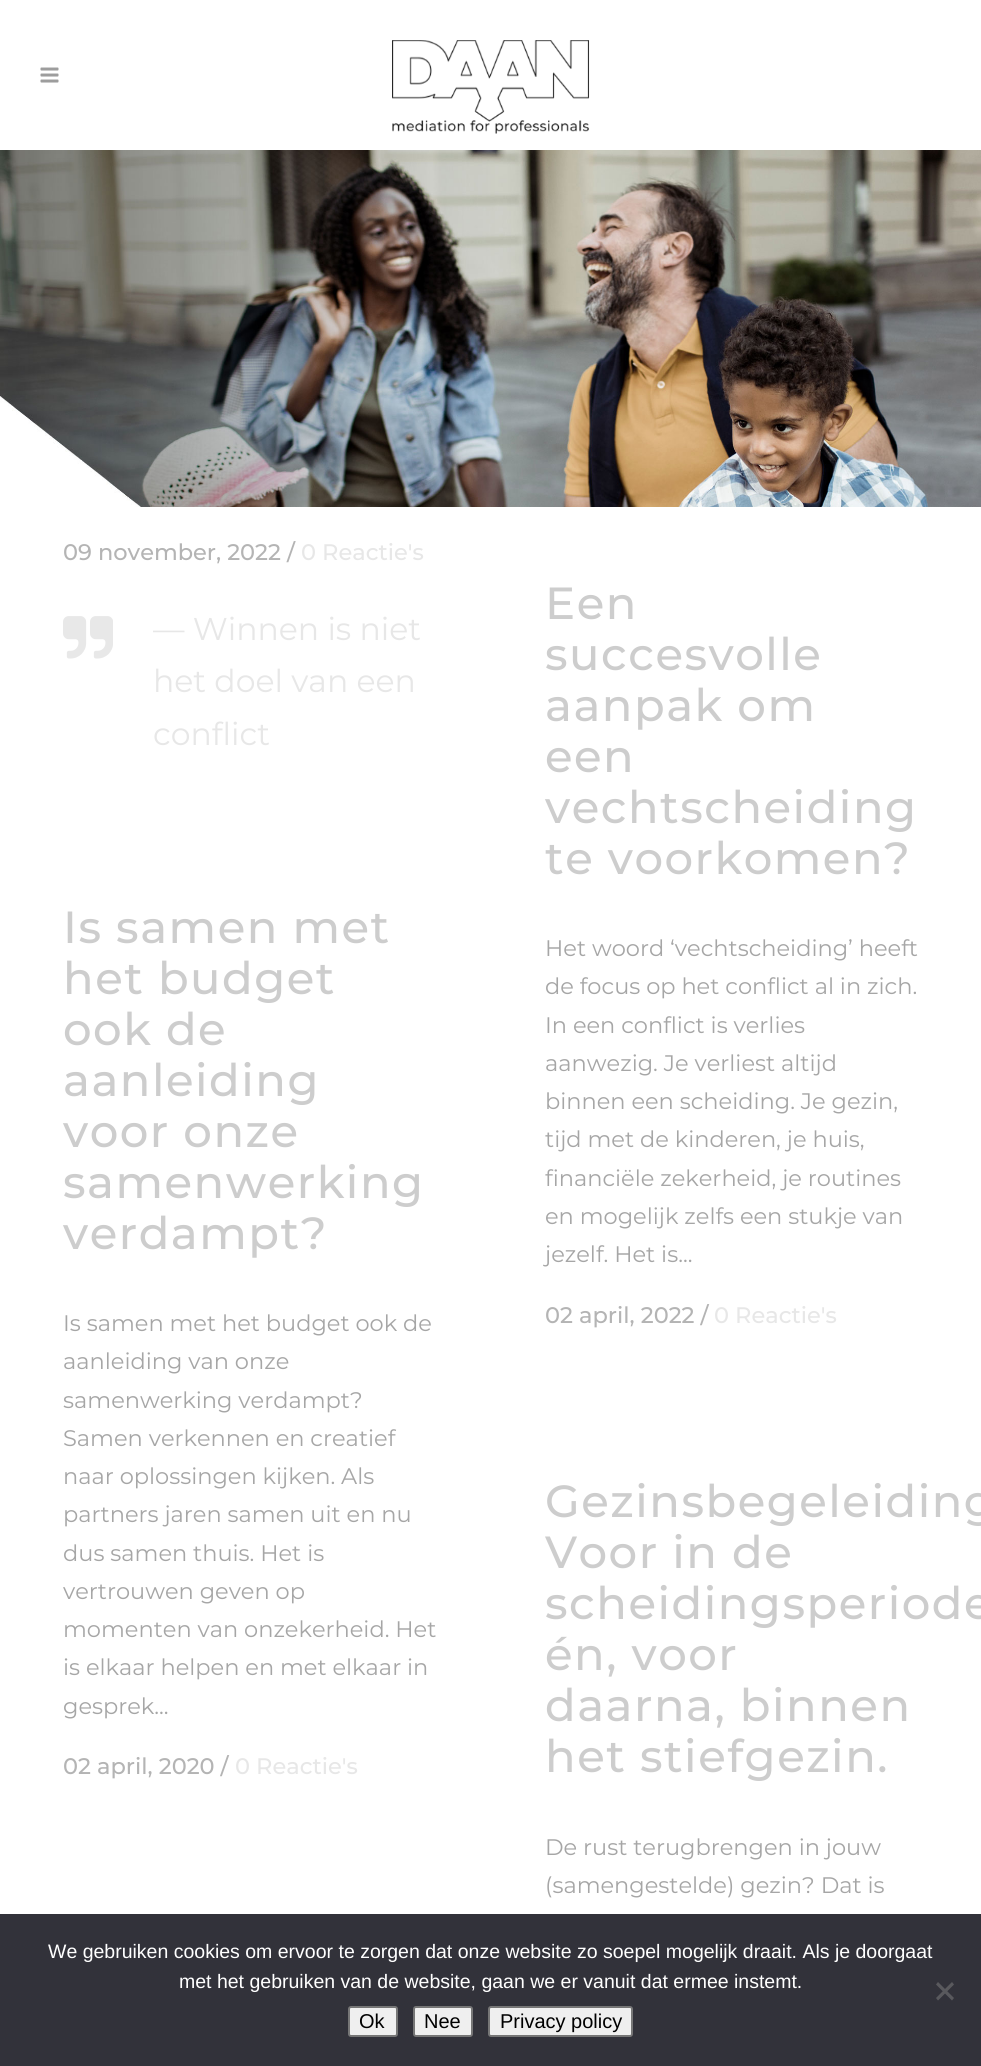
#include <cairo.h>
#include <math.h>
#include <stddef.h>


static void set_color(cairo_t *cr, unsigned color) {
    cairo_set_source_rgb(cr, (color >> 16) / 255.0, (color >> 8 & 255) / 255.0, (color & 255) / 255.0);
}

static void draw_text(cairo_t *cr, double x, double y, const char *s, const char *family, double size, int italic, int bold, unsigned color) {
    cairo_select_font_face(cr, family, italic ? CAIRO_FONT_SLANT_ITALIC : CAIRO_FONT_SLANT_NORMAL,
        bold ? CAIRO_FONT_WEIGHT_BOLD : CAIRO_FONT_WEIGHT_NORMAL);
    cairo_set_font_size(cr, size);
    set_color(cr, color);
    cairo_move_to(cr, x, y);
    cairo_show_text(cr, s);
}

static void draw_spaced(cairo_t *cr, double x, double y, const char *s, double letter, double word) {
    cairo_move_to(cr, x, y);
    while (*s) {
        char ch[5] = {0};
        int n = 0;
        do ch[n++] = *s++; while ((*s & 0xC0) == 0x80);
        cairo_show_text(cr, ch);
        cairo_rel_move_to(cr, letter + word * (*ch == ' '), 0);
    }
}

static void fill_rect(cairo_t *cr, double x, double y, double w, double h, unsigned color) {
    set_color(cr, color);
    cairo_rectangle(cr, x, y, w, h);
    cairo_fill(cr);
}

static void rounded_rect(cairo_t *cr, double x, double y, double w, double h, double r) {
    cairo_new_sub_path(cr);
    cairo_arc(cr, x + w - r, y + h - r, r, 0, M_PI / 2);
    cairo_arc(cr, x + r, y + h - r, r, M_PI / 2, M_PI);
    cairo_arc(cr, x + r, y + r, r, M_PI, 1.5 * M_PI);
    cairo_arc(cr, x + w - r, y + r, r, 1.5 * M_PI, 2 * M_PI);
    cairo_close_path(cr);
}

static void draw_image(cairo_t *cr, const char *path, double x, double y, double w, double h) {
    cairo_surface_t *image = cairo_image_surface_create_from_png(path);
    cairo_save(cr);
    cairo_set_source_surface(cr, image, x, y);
    cairo_rectangle(cr, x, y, w, h);
    cairo_fill(cr);
    cairo_restore(cr);
    cairo_surface_destroy(image);
}

int main(void) {
    cairo_surface_t *surface = cairo_image_surface_create(CAIRO_FORMAT_RGB24, 981, 2066);
    cairo_t *cr = cairo_create(surface);
    cairo_font_options_t *options = cairo_font_options_create();
    cairo_font_options_set_hint_metrics(options, CAIRO_HINT_METRICS_OFF);
    cairo_font_options_set_hint_style(options, CAIRO_HINT_STYLE_NONE);
    cairo_set_font_options(cr, options);
    cairo_set_miter_limit(cr, 4);
    set_color(cr, 0xFFFFFF);
    cairo_paint(cr);
    draw_image(cr, "assets/img1.png", 40, 67, 19, 16);
    draw_image(cr, "assets/img2.png", 392, 40, 198, 94);
    draw_image(cr, "assets/img3.png", 0, 150, 981, 357);
    draw_text(cr, 63, 560, "09 november, 2022 /", "Montserrat Medium", 22.5, 0, 0, 0xB4B4B4);
    draw_text(cr, 301, 560, "0 Reactie's", "Montserrat Medium", 22.5, 0, 0, 0xE7E7E7);
    draw_image(cr, "assets/img4.png", 63, 616, 50, 43);
    draw_text(cr, 153, 640, "— Winnen is niet", "Montserrat", 31.5, 0, 0, 0xE7E7E7);
    draw_text(cr, 153, 692, "het doel van een", "Montserrat", 31.5, 0, 0, 0xE7E7E7);
    draw_text(cr, 153, 745, "conflict", "Montserrat", 31.5, 0, 0, 0xE7E7E7);
    cairo_select_font_face(cr, "Montserrat Medium", CAIRO_FONT_SLANT_NORMAL, CAIRO_FONT_WEIGHT_NORMAL);
    cairo_set_font_size(cr, 45);
    set_color(cr, 0xCDCDCD);
    draw_spaced(cr, 545, 619, "Een", 1.5, 0);
    draw_spaced(cr, 545, 670, "succesvolle", 1.5, 0);
    draw_spaced(cr, 545, 721, "aanpak om", 1.5, 0);
    draw_spaced(cr, 545, 772, "een", 1.5, 0);
    draw_spaced(cr, 545, 823, "vechtscheiding", 1.5, 0);
    draw_spaced(cr, 545, 874, "te voorkomen?", 1.5, 0);
    draw_text(cr, 545, 956, "Het woord ‘vechtscheiding’ heeft", "Montserrat", 22.5, 0, 0, 0xA6A6A6);
    draw_text(cr, 545, 994, "de focus op het conflict al in zich.", "Montserrat", 22.5, 0, 0, 0xA6A6A6);
    draw_text(cr, 545, 1033, "In een conflict is verlies", "Montserrat", 22.5, 0, 0, 0xA6A6A6);
    draw_text(cr, 545, 1071, "aanwezig. Je verliest altijd", "Montserrat", 22.5, 0, 0, 0xA6A6A6);
    draw_text(cr, 545, 1109, "binnen een scheiding. Je gezin,", "Montserrat", 22.5, 0, 0, 0xA6A6A6);
    draw_text(cr, 545, 1147, "tijd met de kinderen, je huis,", "Montserrat", 22.5, 0, 0, 0xA6A6A6);
    draw_text(cr, 545, 1186, "financiële zekerheid, je routines", "Montserrat", 22.5, 0, 0, 0xA6A6A6);
    draw_text(cr, 545, 1224, "en mogelijk zelfs een stukje van", "Montserrat", 22.5, 0, 0, 0xA6A6A6);
    draw_text(cr, 545, 1262, "jezelf. Het is...", "Montserrat", 22.5, 0, 0, 0xA6A6A6);
    draw_text(cr, 545, 1323, "02 april, 2022 /", "Montserrat Medium", 22.5, 0, 0, 0xB4B4B4);
    draw_text(cr, 714, 1323, "0 Reactie's", "Montserrat Medium", 22.5, 0, 0, 0xE7E7E7);
    cairo_set_font_size(cr, 45);
    set_color(cr, 0xCDCDCD);
    draw_spaced(cr, 63, 943, "Is samen met", 1.5, 0);
    draw_spaced(cr, 63, 994, "het budget", 1.5, 0);
    draw_spaced(cr, 63, 1045, "ook de", 1.5, 0);
    draw_spaced(cr, 63, 1096, "aanleiding", 1.5, 0);
    draw_spaced(cr, 63, 1147, "voor onze", 1.5, 0);
    draw_spaced(cr, 63, 1198, "samenwerking", 1.5, 0);
    draw_spaced(cr, 63, 1249, "verdampt?", 1.5, 0);
    draw_text(cr, 63, 1331, "Is samen met het budget ook de", "Montserrat", 22.5, 0, 0, 0xA6A6A6);
    draw_text(cr, 63, 1369, "aanleiding van onze", "Montserrat", 22.5, 0, 0, 0xA6A6A6);
    draw_text(cr, 63, 1408, "samenwerking verdampt?", "Montserrat", 22.5, 0, 0, 0xA6A6A6);
    draw_text(cr, 63, 1446, "Samen verkennen en creatief", "Montserrat", 22.5, 0, 0, 0xA6A6A6);
    draw_text(cr, 63, 1484, "naar oplossingen kijken. Als", "Montserrat", 22.5, 0, 0, 0xA6A6A6);
    draw_text(cr, 63, 1522, "partners jaren samen uit en nu", "Montserrat", 22.5, 0, 0, 0xA6A6A6);
    draw_text(cr, 63, 1561, "dus samen thuis. Het is", "Montserrat", 22.5, 0, 0, 0xA6A6A6);
    draw_text(cr, 63, 1599, "vertrouwen geven op", "Montserrat", 22.5, 0, 0, 0xA6A6A6);
    draw_text(cr, 63, 1637, "momenten van onzekerheid. Het", "Montserrat", 22.5, 0, 0, 0xA6A6A6);
    draw_text(cr, 63, 1675, "is elkaar helpen en met elkaar in", "Montserrat", 22.5, 0, 0, 0xA6A6A6);
    draw_text(cr, 63, 1714, "gesprek...", "Montserrat", 22.5, 0, 0, 0xA6A6A6);
    draw_text(cr, 63, 1774, "02 april, 2020 /", "Montserrat Medium", 22.5, 0, 0, 0xB4B4B4);
    draw_text(cr, 235, 1774, "0 Reactie's", "Montserrat Medium", 22.5, 0, 0, 0xE7E7E7);
    cairo_set_font_size(cr, 45);
    set_color(cr, 0xCDCDCD);
    draw_spaced(cr, 545, 1517, "Gezinsbegeleiding", 1.5, 0);
    draw_spaced(cr, 545, 1568, "Voor in de", 1.5, 0);
    draw_spaced(cr, 545, 1619, "scheidingsperiode", 1.5, 0);
    draw_spaced(cr, 545, 1670, "én, voor", 1.5, 0);
    draw_spaced(cr, 545, 1721, "daarna, binnen", 1.5, 0);
    draw_spaced(cr, 545, 1772, "het stiefgezin.", 1.5, 0);
    draw_text(cr, 545, 1855, "De rust terugbrengen in jouw", "Montserrat", 22.5, 0, 0, 0xA6A6A6);
    draw_text(cr, 545, 1893, "(samengestelde) gezin? Dat is", "Montserrat", 22.5, 0, 0, 0xA6A6A6);
    fill_rect(cr, 0, 1914, 981, 152, 0x32323A);
    draw_text(cr, 48, 1958, "We gebruiken cookies om ervoor te zorgen dat onze website zo soepel mogelijk draait. Als je doorgaat", "Liberation Sans", 19.5, 0, 0, 0xFFFFFF);
    draw_text(cr, 179, 1988, "met het gebruiken van de website, gaan we er vanuit dat ermee instemt.", "Liberation Sans", 19.5, 0, 0, 0xFFFFFF);
    set_color(cr, 0x59595D);
    cairo_new_path(cr);
    cairo_move_to(cr, 952, 1982);
    cairo_line_to(cr, 954, 1984.5);
    cairo_line_to(cr, 938, 2000.5);
    cairo_line_to(cr, 936, 1998);
    cairo_close_path(cr);
    cairo_fill(cr);
    cairo_new_path(cr);
    cairo_move_to(cr, 936, 1984.5);
    cairo_line_to(cr, 938, 1982);
    cairo_line_to(cr, 954, 1998);
    cairo_line_to(cr, 952, 2000.5);
    cairo_close_path(cr);
    cairo_fill(cr);
    set_color(cr, 0xEFEFEF);
    rounded_rect(cr, 349, 2007, 48, 29, 2);
    cairo_fill_preserve(cr);
    set_color(cr, 0x767676);
    cairo_stroke(cr);
    draw_text(cr, 359, 2028, "Ok", "Liberation Sans", 20, 0, 0, 0x000000);
    set_color(cr, 0xEFEFEF);
    rounded_rect(cr, 414, 2007, 58, 29, 2);
    cairo_fill_preserve(cr);
    set_color(cr, 0x767676);
    cairo_stroke(cr);
    draw_text(cr, 424, 2028, "Nee", "Liberation Sans", 20, 0, 0, 0x000000);
    set_color(cr, 0xEFEFEF);
    rounded_rect(cr, 489, 2007, 143, 29, 2);
    cairo_fill_preserve(cr);
    set_color(cr, 0x767676);
    cairo_stroke(cr);
    draw_text(cr, 500, 2028, "Privacy policy", "Liberation Sans", 20, 0, 0, 0x000000);
    cairo_surface_write_to_png(surface, "output.png");
    cairo_font_options_destroy(options);
    cairo_destroy(cr);
    cairo_surface_destroy(surface);
    return 0;
}
